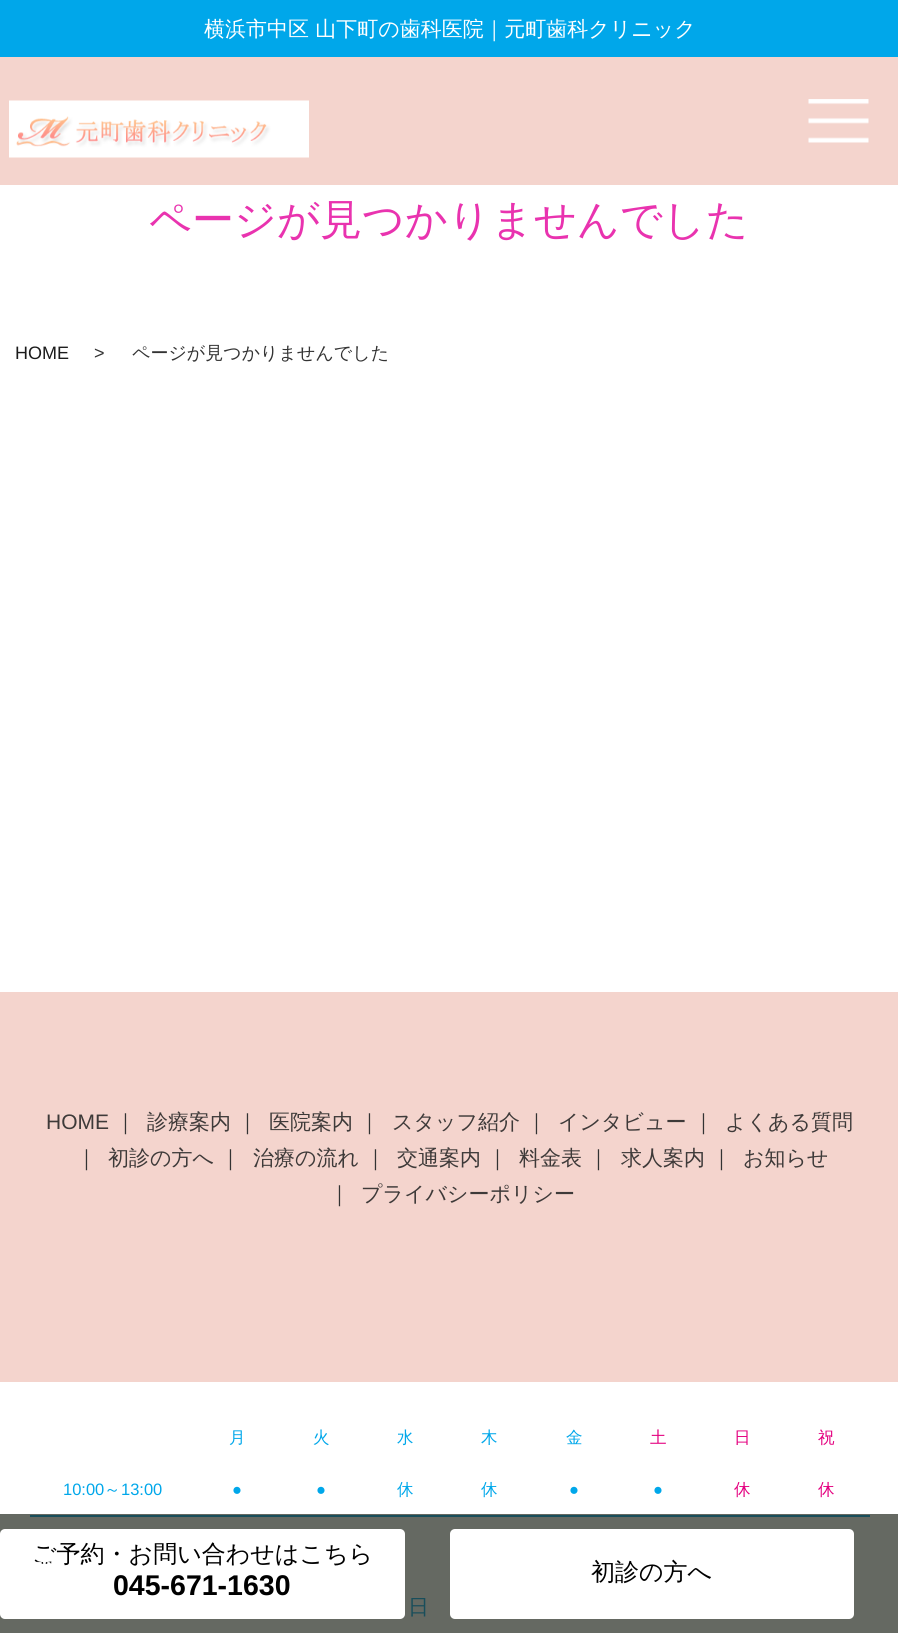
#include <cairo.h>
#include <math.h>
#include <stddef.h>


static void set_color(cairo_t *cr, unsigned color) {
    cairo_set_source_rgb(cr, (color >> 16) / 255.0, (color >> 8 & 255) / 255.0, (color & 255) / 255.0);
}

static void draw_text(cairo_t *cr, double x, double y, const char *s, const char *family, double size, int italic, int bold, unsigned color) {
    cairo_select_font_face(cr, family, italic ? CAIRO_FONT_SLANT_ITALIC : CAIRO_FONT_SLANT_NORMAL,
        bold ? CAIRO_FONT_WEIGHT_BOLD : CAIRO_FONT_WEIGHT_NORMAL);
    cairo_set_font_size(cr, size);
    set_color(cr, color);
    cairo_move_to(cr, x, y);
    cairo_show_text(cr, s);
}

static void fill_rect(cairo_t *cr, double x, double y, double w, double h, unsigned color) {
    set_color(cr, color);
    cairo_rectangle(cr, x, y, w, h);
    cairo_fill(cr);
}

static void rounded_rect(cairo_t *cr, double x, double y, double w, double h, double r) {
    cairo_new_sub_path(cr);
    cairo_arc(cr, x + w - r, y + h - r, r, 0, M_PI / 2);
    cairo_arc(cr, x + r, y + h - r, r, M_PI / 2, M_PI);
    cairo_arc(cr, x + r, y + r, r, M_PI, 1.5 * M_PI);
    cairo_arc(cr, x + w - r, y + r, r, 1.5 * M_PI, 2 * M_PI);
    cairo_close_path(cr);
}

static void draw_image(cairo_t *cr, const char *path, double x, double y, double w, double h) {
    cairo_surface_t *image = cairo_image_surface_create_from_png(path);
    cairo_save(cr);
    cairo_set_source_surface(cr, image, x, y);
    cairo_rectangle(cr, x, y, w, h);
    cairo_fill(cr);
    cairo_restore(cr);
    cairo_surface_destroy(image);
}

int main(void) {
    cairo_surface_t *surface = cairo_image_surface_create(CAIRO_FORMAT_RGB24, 898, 1633);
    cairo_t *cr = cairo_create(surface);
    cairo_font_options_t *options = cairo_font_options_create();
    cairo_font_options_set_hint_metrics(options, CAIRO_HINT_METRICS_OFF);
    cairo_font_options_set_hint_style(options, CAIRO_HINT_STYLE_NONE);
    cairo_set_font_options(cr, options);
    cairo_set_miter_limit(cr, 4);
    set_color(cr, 0xFFFFFF);
    cairo_paint(cr);
    fill_rect(cr, 0, 57, 898, 128, 0xF4D4CD);
    fill_rect(cr, 0, 0, 898, 57, 0x00A7EA);
    draw_text(cr, 204, 36, "横浜市中区 山下町の歯科医院｜元町歯科クリニック", "WenQuanYi Zen Hei Medium", 21, 0, 0, 0xFFFFFF);
    draw_image(cr, "assets/img1.png", 9, 100, 300, 58);
    draw_image(cr, "assets/img2.png", 808, 99, 61, 44);
    draw_text(cr, 149, 234, "ページが見つかりませんでした", "WenQuanYi Zen Hei Medium", 42, 0, 0, 0xE933AF);
    draw_text(cr, 15, 359, "HOME", "Liberation Sans", 18, 0, 0, 0x1B1B1B);
    draw_text(cr, 94, 359, ">", "Liberation Sans", 18, 0, 0, 0x333333);
    draw_text(cr, 132, 359, "ページが見つかりませんでした", "WenQuanYi Zen Hei Medium", 18, 0, 0, 0x333333);
    fill_rect(cr, 0, 992, 898, 390, 0xF4D4CD);
    draw_text(cr, 46, 1129, "HOME", "Liberation Sans", 21, 0, 0, 0x3E3A39);
    draw_text(cr, 115, 1129, "｜", "WenQuanYi Zen Hei Medium", 21, 0, 0, 0x333333);
    draw_text(cr, 147, 1129, "診療案内", "WenQuanYi Zen Hei Medium", 21, 0, 0, 0x3E3A39);
    draw_text(cr, 237, 1129, "｜", "WenQuanYi Zen Hei Medium", 21, 0, 0, 0x333333);
    draw_text(cr, 269, 1129, "医院案内", "WenQuanYi Zen Hei Medium", 21, 0, 0, 0x3E3A39);
    draw_text(cr, 359, 1129, "｜", "WenQuanYi Zen Hei Medium", 21, 0, 0, 0x333333);
    draw_text(cr, 392, 1129, "スタッフ紹介", "WenQuanYi Zen Hei Medium", 21, 0, 0, 0x3E3A39);
    draw_text(cr, 526, 1129, "｜", "WenQuanYi Zen Hei Medium", 21, 0, 0, 0x333333);
    draw_text(cr, 558, 1129, "インタビュー", "WenQuanYi Zen Hei Medium", 21, 0, 0, 0x3E3A39);
    draw_text(cr, 693, 1129, "｜", "WenQuanYi Zen Hei Medium", 21, 0, 0, 0x333333);
    draw_text(cr, 725, 1129, "よくある質問", "WenQuanYi Zen Hei Medium", 21, 0, 0, 0x3E3A39);
    draw_text(cr, 76, 1165, "｜", "WenQuanYi Zen Hei Medium", 21, 0, 0, 0x333333);
    draw_text(cr, 108, 1165, "初診の方へ", "WenQuanYi Zen Hei Medium", 21, 0, 0, 0x3E3A39);
    draw_text(cr, 220, 1165, "｜", "WenQuanYi Zen Hei Medium", 21, 0, 0, 0x333333);
    draw_text(cr, 253, 1165, "治療の流れ", "WenQuanYi Zen Hei Medium", 21, 0, 0, 0x3E3A39);
    draw_text(cr, 365, 1165, "｜", "WenQuanYi Zen Hei Medium", 21, 0, 0, 0x333333);
    draw_text(cr, 397, 1165, "交通案内", "WenQuanYi Zen Hei Medium", 21, 0, 0, 0x3E3A39);
    draw_text(cr, 487, 1165, "｜", "WenQuanYi Zen Hei Medium", 21, 0, 0, 0x333333);
    draw_text(cr, 519, 1165, "料金表", "WenQuanYi Zen Hei Medium", 21, 0, 0, 0x3E3A39);
    draw_text(cr, 588, 1165, "｜", "WenQuanYi Zen Hei Medium", 21, 0, 0, 0x333333);
    draw_text(cr, 621, 1165, "求人案内", "WenQuanYi Zen Hei Medium", 21, 0, 0, 0x3E3A39);
    draw_text(cr, 711, 1165, "｜", "WenQuanYi Zen Hei Medium", 21, 0, 0, 0x333333);
    draw_text(cr, 743, 1165, "お知らせ", "WenQuanYi Zen Hei Medium", 21, 0, 0, 0x3E3A39);
    draw_text(cr, 329, 1201, "｜", "WenQuanYi Zen Hei Medium", 21, 0, 0, 0x333333);
    draw_text(cr, 361, 1201, "プライバシーポリシー", "WenQuanYi Zen Hei Medium", 21, 0, 0, 0x3E3A39);
    fill_rect(cr, 0, 1514, 898, 119, 0x656962);
    draw_text(cr, 229, 1443, "月", "WenQuanYi Zen Hei Medium", 16.5, 0, 0, 0x00A7EA);
    draw_text(cr, 313, 1443, "火", "WenQuanYi Zen Hei Medium", 16.5, 0, 0, 0x00A7EA);
    draw_text(cr, 397, 1443, "水", "WenQuanYi Zen Hei Medium", 16.5, 0, 0, 0x00A7EA);
    draw_text(cr, 481, 1443, "木", "WenQuanYi Zen Hei Medium", 16.5, 0, 0, 0x00A7EA);
    draw_text(cr, 566, 1443, "金", "WenQuanYi Zen Hei Medium", 16.5, 0, 0, 0x00A7EA);
    draw_text(cr, 650, 1443, "土", "WenQuanYi Zen Hei Medium", 16.5, 0, 0, 0xE4007F);
    draw_text(cr, 734, 1443, "日", "WenQuanYi Zen Hei Medium", 16.5, 0, 0, 0xE4007F);
    draw_text(cr, 818, 1443, "祝", "WenQuanYi Zen Hei Medium", 16.5, 0, 0, 0xE4007F);
    draw_text(cr, 63, 1495, "10:00", "Liberation Sans", 16.5, 0, 0, 0x00A7EA);
    draw_text(cr, 104, 1495, "～", "WenQuanYi Zen Hei Medium", 16.5, 0, 0, 0x00A7EA);
    draw_text(cr, 121, 1495, "13:00", "Liberation Sans", 16.5, 0, 0, 0x00A7EA);
    draw_text(cr, 232, 1495, "●", "Liberation Sans", 16.5, 0, 0, 0x00A7EA);
    draw_text(cr, 316, 1495, "●", "Liberation Sans", 16.5, 0, 0, 0x00A7EA);
    draw_text(cr, 397, 1495, "休", "WenQuanYi Zen Hei Medium", 16.5, 0, 0, 0x00A7EA);
    draw_text(cr, 481, 1495, "休", "WenQuanYi Zen Hei Medium", 16.5, 0, 0, 0x00A7EA);
    draw_text(cr, 569, 1495, "●", "Liberation Sans", 16.5, 0, 0, 0x00A7EA);
    draw_text(cr, 653, 1495, "●", "Liberation Sans", 16.5, 0, 0, 0x00A7EA);
    draw_text(cr, 734, 1495, "休", "WenQuanYi Zen Hei Medium", 16.5, 0, 0, 0xE4007F);
    draw_text(cr, 818, 1495, "休", "WenQuanYi Zen Hei Medium", 16.5, 0, 0, 0xE4007F);
    fill_rect(cr, 30, 1515, 840, 2, 0x194E5B);
    draw_text(cr, 408, 1614, "日", "WenQuanYi Zen Hei Medium", 21, 0, 0, 0x194E5B);
    set_color(cr, 0xFFFFFF);
    rounded_rect(cr, 0, 1529, 405, 90, 5);
    cairo_fill(cr);
    draw_text(cr, 32, 1562, "ご予約・お問い合わせはこちら", "WenQuanYi Zen Hei Medium", 24, 0, 0, 0x000000);
    draw_text(cr, 113, 1595, "045-671-1630", "Liberation Sans", 28.5, 0, 1, 0x000000);
    draw_image(cr, "assets/img3.png", 35, 1561, 16, 3);
    set_color(cr, 0xFFFFFF);
    rounded_rect(cr, 450, 1529, 404, 90, 5);
    cairo_fill(cr);
    draw_text(cr, 591, 1580, "初診の方へ", "WenQuanYi Zen Hei Medium", 24, 0, 0, 0x000000);
    cairo_surface_write_to_png(surface, "output.png");
    cairo_font_options_destroy(options);
    cairo_destroy(cr);
    cairo_surface_destroy(surface);
    return 0;
}
